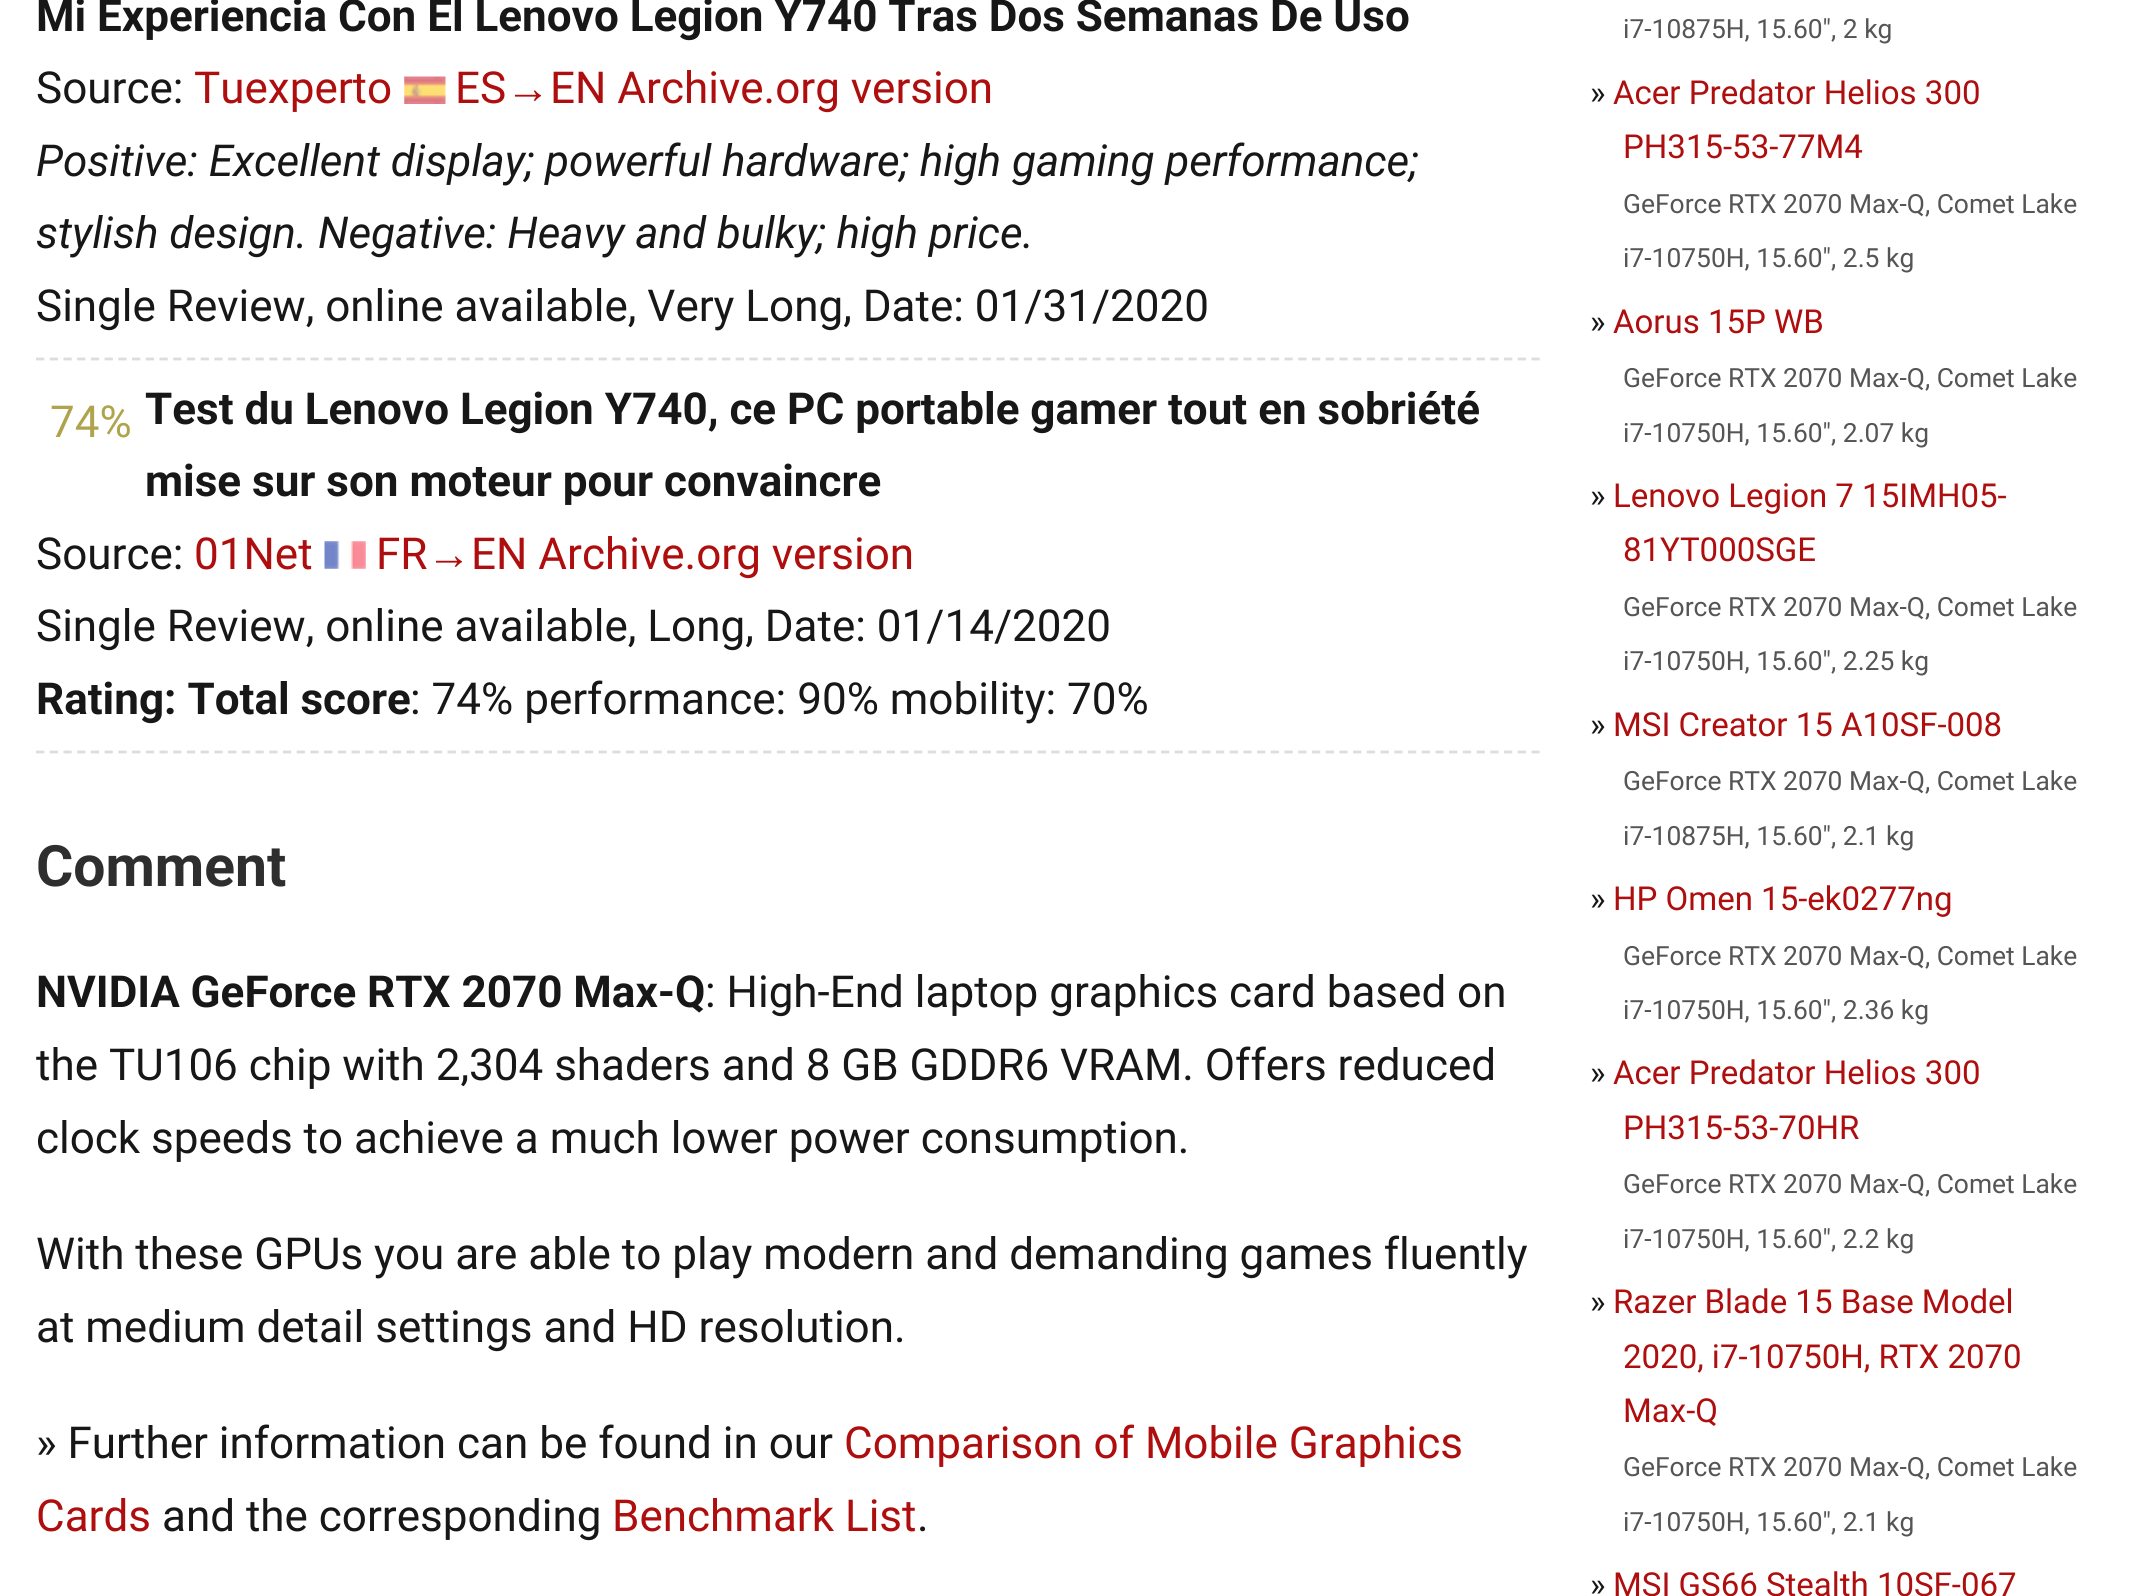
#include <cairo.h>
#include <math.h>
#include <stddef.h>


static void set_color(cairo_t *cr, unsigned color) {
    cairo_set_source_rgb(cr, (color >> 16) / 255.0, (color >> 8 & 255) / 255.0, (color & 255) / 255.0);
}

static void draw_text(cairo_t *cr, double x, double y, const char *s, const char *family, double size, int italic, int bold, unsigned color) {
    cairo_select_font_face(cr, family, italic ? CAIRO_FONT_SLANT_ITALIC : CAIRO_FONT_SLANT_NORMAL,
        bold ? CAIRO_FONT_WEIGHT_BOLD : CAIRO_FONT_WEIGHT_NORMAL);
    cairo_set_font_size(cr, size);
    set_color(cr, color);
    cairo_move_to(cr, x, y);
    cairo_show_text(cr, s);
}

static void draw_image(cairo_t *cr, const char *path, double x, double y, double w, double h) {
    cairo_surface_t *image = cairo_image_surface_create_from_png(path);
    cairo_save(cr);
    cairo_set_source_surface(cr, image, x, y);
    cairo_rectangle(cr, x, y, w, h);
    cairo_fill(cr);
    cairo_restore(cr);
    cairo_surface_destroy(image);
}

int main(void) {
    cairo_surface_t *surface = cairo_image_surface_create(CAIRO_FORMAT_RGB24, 2131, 1596);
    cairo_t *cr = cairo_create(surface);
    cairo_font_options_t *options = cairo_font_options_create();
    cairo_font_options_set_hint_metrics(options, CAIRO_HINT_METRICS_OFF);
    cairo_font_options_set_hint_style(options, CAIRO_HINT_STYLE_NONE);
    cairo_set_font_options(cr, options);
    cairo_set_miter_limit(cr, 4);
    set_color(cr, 0xFFFFFF);
    cairo_paint(cr);
    cairo_new_path(cr);
    cairo_move_to(cr, 36, 359);
    cairo_line_to(cr, 1540, 359);
    set_color(cr, 0xDDDDDD);
    cairo_set_line_width(cr, 2.8);
    cairo_set_dash(cr, (double[]){8.25, 5.47}, 2, 0);
    cairo_stroke(cr);
    draw_text(cr, 36, 31, "Mi Experiencia Con El Lenovo Legion Y740 Tras Dos Semanas De Uso", "Roboto", 44, 0, 1, 0x171717);
    draw_text(cr, 36, 103, "Source:", "Roboto", 44, 0, 0, 0x171717);
    draw_text(cr, 194, 103, "Tuexperto", "Roboto", 44, 0, 0, 0xAF0E0E);
    draw_image(cr, "assets/img1.png", 404, 76, 42, 28);
    draw_text(cr, 455, 103, "ES", "Roboto", 44, 0, 0, 0xAF0E0E);
    draw_text(cr, 506, 103, "→", "Liberation Sans", 44, 0, 0, 0xAF0E0E);
    draw_text(cr, 550, 103, "EN Archive.org version", "Roboto", 44, 0, 0, 0xAF0E0E);
    draw_text(cr, 36, 176, "Positive: Excellent display; powerful hardware; high gaming performance;", "Roboto", 44, 1, 0, 0x171717);
    draw_text(cr, 36, 248, "stylish design. Negative: Heavy and bulky; high price.", "Roboto", 44, 1, 0, 0x171717);
    draw_text(cr, 36, 321, "Single Review, online available, Very Long, Date: 01/31/2020", "Roboto", 44, 0, 0, 0x171717);
    cairo_new_path(cr);
    cairo_move_to(cr, 36, 752);
    cairo_line_to(cr, 1540, 752);
    set_color(cr, 0xDDDDDD);
    cairo_stroke(cr);
    draw_text(cr, 50, 437, "74%", "Roboto", 44, 0, 0, 0xAFA44B);
    draw_text(cr, 145, 424, "Test du Lenovo Legion Y740, ce PC portable gamer tout en sobriété", "Roboto", 44, 0, 1, 0x171717);
    draw_text(cr, 145, 496, "mise sur son moteur pour convaincre", "Roboto", 44, 0, 1, 0x171717);
    draw_text(cr, 36, 569, "Source:", "Roboto", 44, 0, 0, 0x171717);
    draw_text(cr, 194, 569, "01Net", "Roboto", 44, 0, 0, 0xAF0E0E);
    draw_image(cr, "assets/img2.png", 324, 541, 42, 28);
    draw_text(cr, 376, 569, "FR", "Roboto", 44, 0, 0, 0xAF0E0E);
    draw_text(cr, 427, 569, "→", "Liberation Sans", 44, 0, 0, 0xAF0E0E);
    draw_text(cr, 471, 569, "EN Archive.org version", "Roboto", 44, 0, 0, 0xAF0E0E);
    draw_text(cr, 36, 641, "Single Review, online available, Long, Date: 01/14/2020", "Roboto", 44, 0, 0, 0x171717);
    draw_text(cr, 36, 714, "Rating: Total score", "Roboto", 44, 0, 1, 0x171717);
    draw_text(cr, 410, 714, ": 74% performance: 90% mobility: 70%", "Roboto", 44, 0, 0, 0x171717);
    draw_text(cr, 36, 886, "Comment", "Roboto", 57, 0, 1, 0x2E2E2E);
    draw_text(cr, 36, 1007, "NVIDIA GeForce RTX 2070 Max-Q", "Roboto", 44, 0, 1, 0x171717);
    draw_text(cr, 705, 1007, ": High-End laptop graphics card based on", "Roboto", 44, 0, 0, 0x171717);
    draw_text(cr, 36, 1080, "the TU106 chip with 2,304 shaders and 8 GB GDDR6 VRAM. Offers reduced", "Roboto", 44, 0, 0, 0x171717);
    draw_text(cr, 36, 1153, "clock speeds to achieve a much lower power consumption.", "Roboto", 44, 0, 0, 0x171717);
    draw_text(cr, 36, 1269, "With these GPUs you are able to play modern and demanding games fluently", "Roboto", 44, 0, 0, 0x171717);
    draw_text(cr, 36, 1342, "at medium detail settings and HD resolution.", "Roboto", 44, 0, 0, 0x171717);
    draw_text(cr, 36, 1458, "» Further information can be found in our", "Roboto", 44, 0, 0, 0x171717);
    draw_text(cr, 844, 1458, "Comparison of Mobile Graphics", "Roboto", 44, 0, 0, 0xAF0E0E);
    draw_text(cr, 36, 1531, "Cards", "Roboto", 44, 0, 0, 0xAF0E0E);
    draw_text(cr, 162, 1531, "and the corresponding", "Roboto", 44, 0, 0, 0x171717);
    draw_text(cr, 612, 1531, "Benchmark List", "Roboto", 44, 0, 0, 0xAF0E0E);
    draw_text(cr, 917, 1531, ".", "Roboto", 44, 0, 0, 0x171717);
    draw_text(cr, 1623, 38, "i7-10875H, 15.60\", 2 kg", "Roboto", 26.4, 0, 0, 0x555555);
    draw_text(cr, 1590, 104, "»", "Roboto", 33, 0, 0, 0x171717);
    draw_text(cr, 1613, 104, "Acer Predator Helios 300", "Roboto", 33, 0, 0, 0xAF0E0E);
    draw_text(cr, 1623, 158, "PH315-53-77M4", "Roboto", 33, 0, 0, 0xAF0E0E);
    draw_text(cr, 1623, 213, "GeForce RTX 2070 Max-Q, Comet Lake", "Roboto", 26.4, 0, 0, 0x555555);
    draw_text(cr, 1623, 267, "i7-10750H, 15.60\", 2.5 kg", "Roboto", 26.4, 0, 0, 0x555555);
    draw_text(cr, 1590, 333, "»", "Roboto", 33, 0, 0, 0x171717);
    draw_text(cr, 1613, 333, "Aorus 15P WB", "Roboto", 33, 0, 0, 0xAF0E0E);
    draw_text(cr, 1623, 387, "GeForce RTX 2070 Max-Q, Comet Lake", "Roboto", 26.4, 0, 0, 0x555555);
    draw_text(cr, 1623, 442, "i7-10750H, 15.60\", 2.07 kg", "Roboto", 26.4, 0, 0, 0x555555);
    draw_text(cr, 1590, 507, "»", "Roboto", 33, 0, 0, 0x171717);
    draw_text(cr, 1613, 507, "Lenovo Legion 7 15IMH05-", "Roboto", 33, 0, 0, 0xAF0E0E);
    draw_text(cr, 1623, 561, "81YT000SGE", "Roboto", 33, 0, 0, 0xAF0E0E);
    draw_text(cr, 1623, 616, "GeForce RTX 2070 Max-Q, Comet Lake", "Roboto", 26.4, 0, 0, 0x555555);
    draw_text(cr, 1623, 670, "i7-10750H, 15.60\", 2.25 kg", "Roboto", 26.4, 0, 0, 0x555555);
    draw_text(cr, 1590, 736, "»", "Roboto", 33, 0, 0, 0x171717);
    draw_text(cr, 1613, 736, "MSI Creator 15 A10SF-008", "Roboto", 33, 0, 0, 0xAF0E0E);
    draw_text(cr, 1623, 790, "GeForce RTX 2070 Max-Q, Comet Lake", "Roboto", 26.4, 0, 0, 0x555555);
    draw_text(cr, 1623, 845, "i7-10875H, 15.60\", 2.1 kg", "Roboto", 26.4, 0, 0, 0x555555);
    draw_text(cr, 1590, 910, "»", "Roboto", 33, 0, 0, 0x171717);
    draw_text(cr, 1613, 910, "HP Omen 15-ek0277ng", "Roboto", 33, 0, 0, 0xAF0E0E);
    draw_text(cr, 1623, 965, "GeForce RTX 2070 Max-Q, Comet Lake", "Roboto", 26.4, 0, 0, 0x555555);
    draw_text(cr, 1623, 1019, "i7-10750H, 15.60\", 2.36 kg", "Roboto", 26.4, 0, 0, 0x555555);
    draw_text(cr, 1590, 1084, "»", "Roboto", 33, 0, 0, 0x171717);
    draw_text(cr, 1613, 1084, "Acer Predator Helios 300", "Roboto", 33, 0, 0, 0xAF0E0E);
    draw_text(cr, 1623, 1139, "PH315-53-70HR", "Roboto", 33, 0, 0, 0xAF0E0E);
    draw_text(cr, 1623, 1193, "GeForce RTX 2070 Max-Q, Comet Lake", "Roboto", 26.4, 0, 0, 0x555555);
    draw_text(cr, 1623, 1248, "i7-10750H, 15.60\", 2.2 kg", "Roboto", 26.4, 0, 0, 0x555555);
    draw_text(cr, 1590, 1313, "»", "Roboto", 33, 0, 0, 0x171717);
    draw_text(cr, 1613, 1313, "Razer Blade 15 Base Model", "Roboto", 33, 0, 0, 0xAF0E0E);
    draw_text(cr, 1623, 1368, "2020, i7-10750H, RTX 2070", "Roboto", 33, 0, 0, 0xAF0E0E);
    draw_text(cr, 1623, 1422, "Max-Q", "Roboto", 33, 0, 0, 0xAF0E0E);
    draw_text(cr, 1623, 1476, "GeForce RTX 2070 Max-Q, Comet Lake", "Roboto", 26.4, 0, 0, 0x555555);
    draw_text(cr, 1623, 1531, "i7-10750H, 15.60\", 2.1 kg", "Roboto", 26.4, 0, 0, 0x555555);
    draw_text(cr, 1590, 1596, "»", "Roboto", 33, 0, 0, 0x171717);
    draw_text(cr, 1613, 1596, "MSI GS66 Stealth 10SF-067", "Roboto", 33, 0, 0, 0xAF0E0E);
    cairo_surface_write_to_png(surface, "output.png");
    cairo_font_options_destroy(options);
    cairo_destroy(cr);
    cairo_surface_destroy(surface);
    return 0;
}
